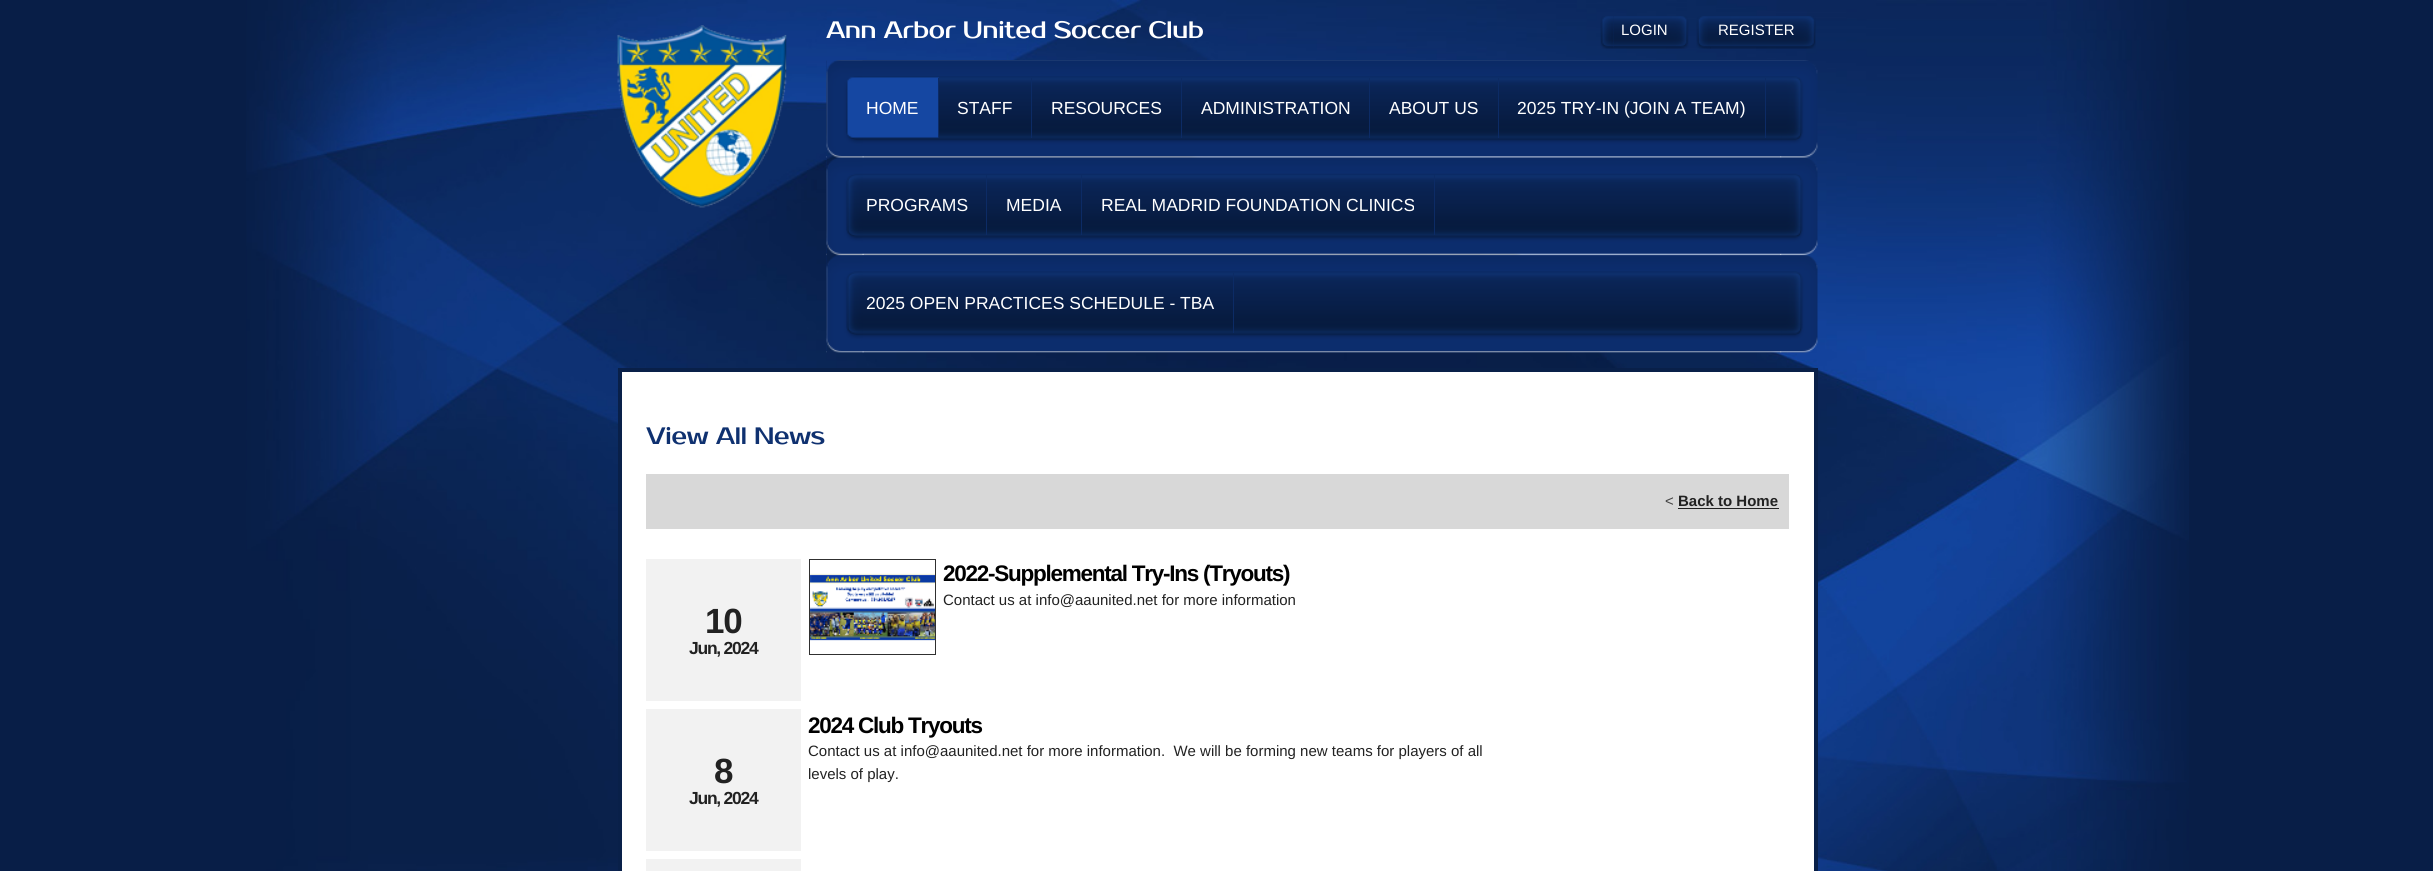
#include <cairo.h>
#include <math.h>
#include <stddef.h>


static void set_color(cairo_t *cr, unsigned color) {
    cairo_set_source_rgb(cr, (color >> 16) / 255.0, (color >> 8 & 255) / 255.0, (color & 255) / 255.0);
}

static void draw_text(cairo_t *cr, double x, double y, const char *s, const char *family, double size, int italic, int bold, unsigned color) {
    cairo_select_font_face(cr, family, italic ? CAIRO_FONT_SLANT_ITALIC : CAIRO_FONT_SLANT_NORMAL,
        bold ? CAIRO_FONT_WEIGHT_BOLD : CAIRO_FONT_WEIGHT_NORMAL);
    cairo_set_font_size(cr, size);
    set_color(cr, color);
    cairo_move_to(cr, x, y);
    cairo_show_text(cr, s);
}

static void draw_spaced(cairo_t *cr, double x, double y, const char *s, double letter, double word) {
    cairo_move_to(cr, x, y);
    while (*s) {
        char ch[5] = {0};
        int n = 0;
        do ch[n++] = *s++; while ((*s & 0xC0) == 0x80);
        cairo_show_text(cr, ch);
        cairo_rel_move_to(cr, letter + word * (*ch == ' '), 0);
    }
}

static void fill_rect(cairo_t *cr, double x, double y, double w, double h, unsigned color) {
    set_color(cr, color);
    cairo_rectangle(cr, x, y, w, h);
    cairo_fill(cr);
}

static void draw_image(cairo_t *cr, const char *path, double x, double y, double w, double h) {
    cairo_surface_t *image = cairo_image_surface_create_from_png(path);
    cairo_save(cr);
    cairo_set_source_surface(cr, image, x, y);
    cairo_rectangle(cr, x, y, w, h);
    cairo_fill(cr);
    cairo_restore(cr);
    cairo_surface_destroy(image);
}

int main(void) {
    cairo_surface_t *surface = cairo_image_surface_create(CAIRO_FORMAT_RGB24, 2433, 871);
    cairo_t *cr = cairo_create(surface);
    cairo_font_options_t *options = cairo_font_options_create();
    cairo_font_options_set_hint_metrics(options, CAIRO_HINT_METRICS_OFF);
    cairo_font_options_set_hint_style(options, CAIRO_HINT_STYLE_NONE);
    cairo_set_font_options(cr, options);
    cairo_set_miter_limit(cr, 4);
    set_color(cr, 0x081E47);
    cairo_paint(cr);
    draw_image(cr, "assets/img1.png", 246, 0, 1943, 871);
    draw_image(cr, "assets/img2.png", 617, 25, 170, 183);
    cairo_select_font_face(cr, "Prosto One", CAIRO_FONT_SLANT_NORMAL, CAIRO_FONT_WEIGHT_NORMAL);
    cairo_set_font_size(cr, 23.75);
    set_color(cr, 0xFFFFFF);
    draw_spaced(cr, 826, 38, "Ann Arbor United Soccer Club", -0.7, 0);
    draw_image(cr, "assets/img3.png", 1600, 16, 14, 33);
    draw_image(cr, "assets/img4.png", 1613, 16, 76, 33);
    draw_text(cr, 1621, 35, "LOGIN", "Liberation Sans", 15, 0, 0, 0xFFFFFF);
    draw_image(cr, "assets/img5.png", 1696, 16, 15, 33);
    draw_image(cr, "assets/img6.png", 1710, 16, 106, 33);
    draw_text(cr, 1718, 35, "REGISTER", "Liberation Sans", 15, 0, 0, 0xFFFFFF);
    draw_image(cr, "assets/img7.png", 1780, 60, 38, 293);
    draw_image(cr, "assets/img8.png", 826, 60, 38, 293);
    draw_image(cr, "assets/img9.png", 862, 60, 920, 293);
    draw_image(cr, "assets/img10.png", 847, 77, 92, 61);
    fill_rect(cr, 938, 78, 1, 60, 0x0C2B65);
    draw_text(cr, 866, 114, "HOME", "Liberation Sans", 17.5, 0, 0, 0xFFFFFF);
    fill_rect(cr, 1031, 78, 1, 60, 0x0C2B65);
    draw_text(cr, 957, 114, "STAFF", "Liberation Sans", 17.5, 0, 0, 0xFFFFFF);
    fill_rect(cr, 1181, 78, 1, 60, 0x0C2B65);
    draw_text(cr, 1051, 114, "RESOURCES", "Liberation Sans", 17.5, 0, 0, 0xFFFFFF);
    fill_rect(cr, 1369, 78, 1, 60, 0x0C2B65);
    draw_text(cr, 1201, 114, "ADMINISTRATION", "Liberation Sans", 17.5, 0, 0, 0xFFFFFF);
    fill_rect(cr, 1498, 78, 1, 60, 0x0C2B65);
    draw_text(cr, 1389, 114, "ABOUT US", "Liberation Sans", 17.5, 0, 0, 0xFFFFFF);
    fill_rect(cr, 1765, 78, 1, 60, 0x0C2B65);
    draw_text(cr, 1517, 114, "2025 TRY-IN (JOIN A TEAM)", "Liberation Sans", 17.5, 0, 0, 0xFFFFFF);
    fill_rect(cr, 986, 175, 1, 60, 0x0C2B65);
    draw_text(cr, 866, 211, "PROGRAMS", "Liberation Sans", 17.5, 0, 0, 0xFFFFFF);
    fill_rect(cr, 1081, 175, 1, 60, 0x0C2B65);
    draw_text(cr, 1006, 211, "MEDIA", "Liberation Sans", 17.5, 0, 0, 0xFFFFFF);
    fill_rect(cr, 1434, 175, 1, 60, 0x0C2B65);
    draw_text(cr, 1101, 211, "REAL MADRID FOUNDATION CLINICS", "Liberation Sans", 17.5, 0, 0, 0xFFFFFF);
    fill_rect(cr, 1233, 273, 1, 60, 0x0C2B65);
    draw_text(cr, 866, 309, "2025 OPEN PRACTICES SCHEDULE - TBA", "Liberation Sans", 17.5, 0, 0, 0xFFFFFF);
    cairo_rectangle(cr, 620, 370, 1196, 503);
    cairo_fill_preserve(cr);
    set_color(cr, 0x092049);
    cairo_set_line_width(cr, 4);
    cairo_stroke(cr);
    cairo_select_font_face(cr, "Prosto One", CAIRO_FONT_SLANT_NORMAL, CAIRO_FONT_WEIGHT_NORMAL);
    cairo_set_font_size(cr, 23.75);
    set_color(cr, 0x0F3170);
    draw_spaced(cr, 646, 444, "View All News", -0.7, 0);
    fill_rect(cr, 646, 474, 1143, 55, 0xD8D8D8);
    draw_text(cr, 1665, 506, "<", "Liberation Sans", 15, 0, 0, 0x444444);
    draw_text(cr, 1678, 506, "Back to Home", "Liberation Sans", 15, 0, 1, 0x222222);
    fill_rect(cr, 1678, 508, 101, 1, 0x222222);
    cairo_rectangle(cr, 809.5, 559.5, 126, 95);
    set_color(cr, 0x303030);
    cairo_set_line_width(cr, 1);
    cairo_stroke(cr);
    draw_image(cr, "assets/img11.png", 810, 573, 125, 68);
    cairo_set_font_size(cr, 22.5);
    set_color(cr, 0x000000);
    draw_spaced(cr, 943, 581, "2022-Supplemental Try-Ins (Tryouts)", -1.25, 0);
    draw_text(cr, 943, 605, "Contact us at info@aaunited.net for more information", "Liberation Sans", 15, 0, 0, 0x222222);
    fill_rect(cr, 646, 559, 155, 142, 0xF2F2F2);
    cairo_select_font_face(cr, "Liberation Sans", CAIRO_FONT_SLANT_NORMAL, CAIRO_FONT_WEIGHT_BOLD);
    cairo_set_font_size(cr, 35);
    set_color(cr, 0x222222);
    draw_spaced(cr, 705, 633, "10", -1.25, 0);
    cairo_set_font_size(cr, 17.5);
    draw_spaced(cr, 689, 654, "Jun, 2024", -1.25, 0);
    fill_rect(cr, 646, 709, 155, 142, 0xF2F2F2);
    cairo_set_font_size(cr, 35);
    set_color(cr, 0x222222);
    draw_spaced(cr, 714, 783, "8", -1.25, 0);
    cairo_set_font_size(cr, 17.5);
    draw_spaced(cr, 689, 804, "Jun, 2024", -1.25, 0);
    cairo_set_font_size(cr, 22.5);
    set_color(cr, 0x000000);
    draw_spaced(cr, 808, 733, "2024 Club Tryouts", -1.25, 0);
    draw_text(cr, 808, 756, "Contact us at info@aaunited.net for more information.  We will be forming new teams for players of all", "Liberation Sans", 15, 0, 0, 0x222222);
    draw_text(cr, 808, 779, "levels of play.", "Liberation Sans", 15, 0, 0, 0x222222);
    fill_rect(cr, 646, 859, 155, 12, 0xF2F2F2);
    cairo_surface_write_to_png(surface, "output.png");
    cairo_font_options_destroy(options);
    cairo_destroy(cr);
    cairo_surface_destroy(surface);
    return 0;
}
